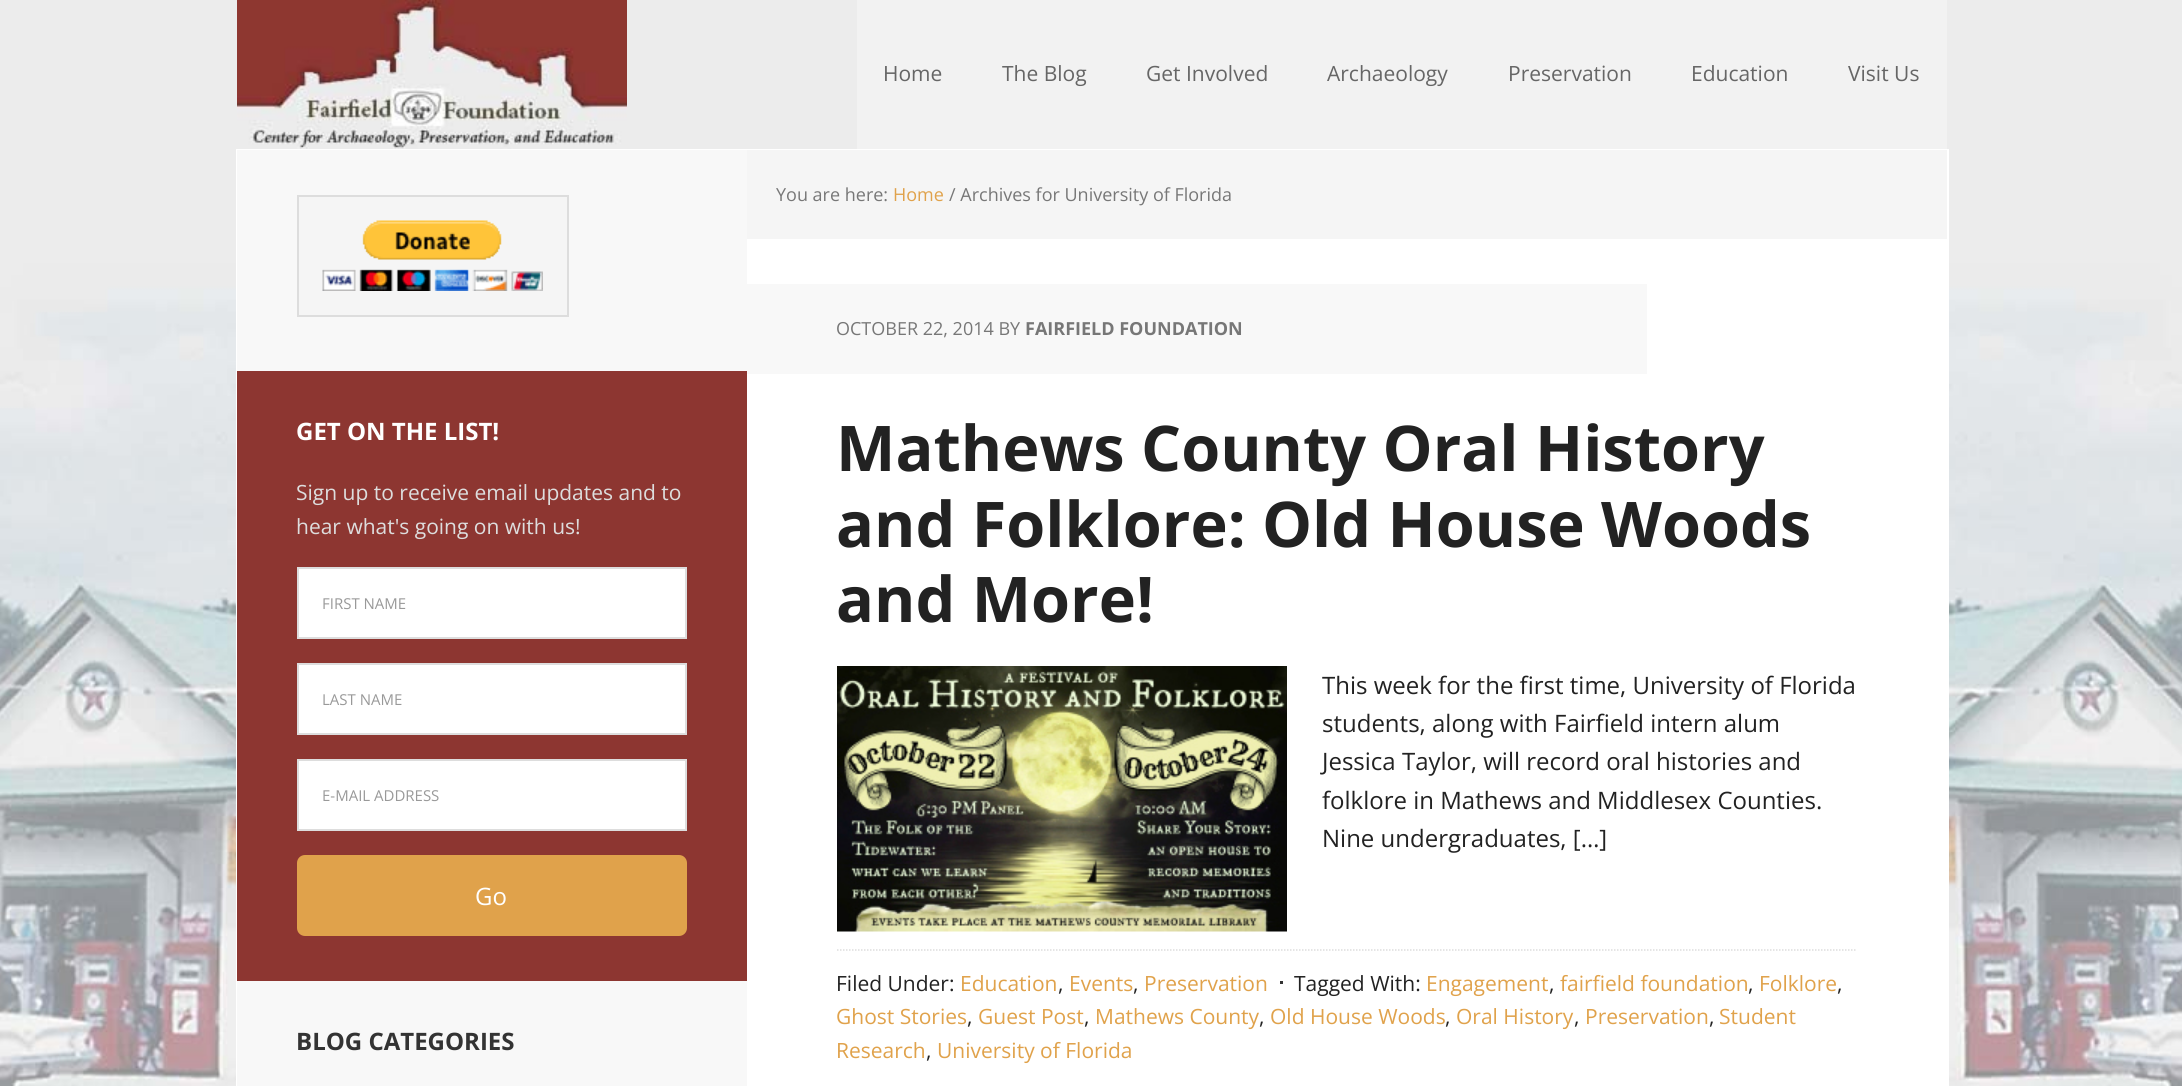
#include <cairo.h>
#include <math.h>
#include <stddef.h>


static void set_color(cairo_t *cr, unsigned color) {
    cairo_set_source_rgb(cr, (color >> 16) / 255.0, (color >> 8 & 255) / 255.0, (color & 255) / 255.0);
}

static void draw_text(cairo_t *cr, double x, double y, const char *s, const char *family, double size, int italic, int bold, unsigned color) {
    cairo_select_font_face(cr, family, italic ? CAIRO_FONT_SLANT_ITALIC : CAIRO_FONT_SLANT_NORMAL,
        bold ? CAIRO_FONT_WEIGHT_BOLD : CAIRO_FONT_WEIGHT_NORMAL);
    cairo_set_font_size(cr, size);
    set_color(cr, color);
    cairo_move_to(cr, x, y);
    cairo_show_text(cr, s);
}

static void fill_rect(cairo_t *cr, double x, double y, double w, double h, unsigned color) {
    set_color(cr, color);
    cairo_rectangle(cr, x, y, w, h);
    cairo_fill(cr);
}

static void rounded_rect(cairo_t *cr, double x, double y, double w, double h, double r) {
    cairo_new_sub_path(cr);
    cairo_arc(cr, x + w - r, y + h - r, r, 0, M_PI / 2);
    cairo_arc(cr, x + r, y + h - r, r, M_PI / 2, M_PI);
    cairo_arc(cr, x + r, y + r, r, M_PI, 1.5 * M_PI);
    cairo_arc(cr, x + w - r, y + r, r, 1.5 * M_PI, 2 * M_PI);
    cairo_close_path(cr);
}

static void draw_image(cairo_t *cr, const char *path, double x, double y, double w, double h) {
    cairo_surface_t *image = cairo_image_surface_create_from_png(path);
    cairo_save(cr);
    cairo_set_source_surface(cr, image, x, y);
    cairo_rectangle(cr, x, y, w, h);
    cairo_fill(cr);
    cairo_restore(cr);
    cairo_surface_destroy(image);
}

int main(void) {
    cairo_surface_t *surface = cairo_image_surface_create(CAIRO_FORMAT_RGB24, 2182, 1086);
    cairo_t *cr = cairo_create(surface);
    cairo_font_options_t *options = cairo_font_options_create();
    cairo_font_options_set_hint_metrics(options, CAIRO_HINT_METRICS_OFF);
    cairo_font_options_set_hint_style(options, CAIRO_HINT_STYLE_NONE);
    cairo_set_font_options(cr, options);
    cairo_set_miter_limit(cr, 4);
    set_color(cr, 0xFFFFFF);
    cairo_paint(cr);
    draw_image(cr, "assets/img1.png", 0, 0, 2182, 1086);
    draw_image(cr, "assets/img2.png", 237, 0, 390, 149);
    fill_rect(cr, 857, 0, 1090, 149, 0xF2F2F2);
    draw_text(cr, 883, 81, "Home", "Open Sans", 21, 0, 0, 0x666666);
    draw_text(cr, 1002, 81, "The Blog", "Open Sans", 21, 0, 0, 0x666666);
    draw_text(cr, 1146, 81, "Get Involved", "Open Sans", 21, 0, 0, 0x666666);
    draw_text(cr, 1327, 81, "Archaeology", "Open Sans", 21, 0, 0, 0x666666);
    draw_text(cr, 1508, 81, "Preservation", "Open Sans", 21, 0, 0, 0x666666);
    draw_text(cr, 1691, 81, "Education", "Open Sans", 21, 0, 0, 0x666666);
    draw_text(cr, 1848, 81, "Visit Us", "Open Sans", 21, 0, 0, 0x666666);
    cairo_rectangle(cr, 237, 150, 1711, 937);
    set_color(cr, 0xFFFFFF);
    cairo_stroke(cr);
    fill_rect(cr, 747, 239, 1200, 847, 0xFFFFFF);
    fill_rect(cr, 237, 150, 510, 936, 0xF8F8F8);
    set_color(cr, 0xF5F5F5);
    cairo_rectangle(cr, 298, 196, 270, 120);
    cairo_fill_preserve(cr);
    set_color(cr, 0xDDDDDD);
    cairo_stroke(cr);
    draw_image(cr, "assets/img3.png", 322, 220, 221, 71);
    fill_rect(cr, 237, 371, 510, 610, 0x8D3631);
    draw_text(cr, 296, 440, "GET ON THE LIST!", "Open Sans", 24, 0, 1, 0xFFFFFF);
    draw_text(cr, 296, 500, "Sign up to receive email updates and to", "Open Sans", 21, 0, 0, 0xDDDDDD);
    draw_text(cr, 296, 534, "hear what's going on with us!", "Open Sans", 21, 0, 0, 0xDDDDDD);
    set_color(cr, 0xFFFFFF);
    cairo_rectangle(cr, 298, 568, 388, 70);
    cairo_fill_preserve(cr);
    set_color(cr, 0xDDDDDD);
    cairo_stroke(cr);
    draw_text(cr, 322, 609, "FIRST NAME", "Open Sans", 15, 0, 0, 0x999999);
    set_color(cr, 0xFFFFFF);
    cairo_rectangle(cr, 298, 664, 388, 70);
    cairo_fill_preserve(cr);
    set_color(cr, 0xDDDDDD);
    cairo_stroke(cr);
    draw_text(cr, 322, 705, "LAST NAME", "Open Sans", 15, 0, 0, 0x999999);
    set_color(cr, 0xFFFFFF);
    cairo_rectangle(cr, 298, 760, 388, 70);
    cairo_fill_preserve(cr);
    set_color(cr, 0xDDDDDD);
    cairo_stroke(cr);
    draw_text(cr, 322, 801, "E-MAIL ADDRESS", "Open Sans", 15, 0, 0, 0x999999);
    set_color(cr, 0xE0A24B);
    rounded_rect(cr, 297, 855, 390, 81, 8);
    cairo_fill(cr);
    draw_text(cr, 475, 905, "Go", "Open Sans", 24, 0, 0, 0xFFFFFF);
    draw_text(cr, 296, 1050, "BLOG CATEGORIES", "Open Sans", 24, 0, 1, 0x333333);
    fill_rect(cr, 747, 150, 1200, 89, 0xF5F5F5);
    draw_text(cr, 776, 201, "You are here:", "Open Sans", 18, 0, 0, 0x777777);
    draw_text(cr, 893, 201, "Home", "Open Sans", 18, 0, 0, 0xE0A24B);
    draw_text(cr, 949, 201, "/ Archives for University of Florida", "Open Sans", 18, 0, 0, 0x777777);
    fill_rect(cr, 747, 284, 900, 90, 0xF8F8F8);
    draw_text(cr, 836, 335, "OCTOBER 22, 2014 BY", "Open Sans", 18, 0, 0, 0x777777);
    draw_text(cr, 1025, 335, "FAIRFIELD FOUNDATION", "Open Sans", 18, 0, 1, 0x777777);
    draw_text(cr, 836, 471, "Mathews County Oral History", "Open Sans", 63, 0, 1, 0x222222);
    draw_text(cr, 836, 547, "and Folklore: Old House Woods", "Open Sans", 63, 0, 1, 0x222222);
    draw_text(cr, 836, 622, "and More!", "Open Sans", 63, 0, 1, 0x222222);
    draw_image(cr, "assets/img4.png", 837, 666, 450, 266);
    draw_text(cr, 1322, 694, "This week for the first time, University of Florida", "Open Sans", 24, 0, 0, 0x222222);
    draw_text(cr, 1322, 732, "students, along with Fairfield intern alum", "Open Sans", 24, 0, 0, 0x222222);
    draw_text(cr, 1322, 770, "Jessica Taylor, will record oral histories and", "Open Sans", 24, 0, 0, 0x222222);
    draw_text(cr, 1322, 809, "folklore in Mathews and Middlesex Counties.", "Open Sans", 24, 0, 0, 0x222222);
    draw_text(cr, 1322, 847, "Nine undergraduates, […]", "Open Sans", 24, 0, 0, 0x222222);
    cairo_new_path(cr);
    cairo_move_to(cr, 837, 950);
    cairo_line_to(cr, 1857, 950);
    set_color(cr, 0xDDDDDD);
    cairo_set_line_width(cr, 1.5);
    cairo_set_dash(cr, (double[]){1.5, 1.5}, 2, 0);
    cairo_stroke(cr);
    draw_text(cr, 836, 991, "Filed Under:", "Open Sans", 21, 0, 0, 0x222222);
    draw_text(cr, 960, 991, "Education", "Open Sans", 21, 0, 0, 0xE0A24B);
    draw_text(cr, 1058, 991, ",", "Open Sans", 21, 0, 0, 0x222222);
    draw_text(cr, 1069, 991, "Events", "Open Sans", 21, 0, 0, 0xE0A24B);
    draw_text(cr, 1133, 991, ",", "Open Sans", 21, 0, 0, 0x222222);
    draw_text(cr, 1144, 991, "Preservation", "Open Sans", 21, 0, 0, 0xE0A24B);
    draw_text(cr, 1294, 991, "Tagged With:", "Open Sans", 21, 0, 0, 0x222222);
    fill_rect(cr, 1280, 981, 3, 3, 0x333333);
    draw_text(cr, 1426, 991, "Engagement", "Open Sans", 21, 0, 0, 0xE0A24B);
    draw_text(cr, 1549, 991, ",", "Open Sans", 21, 0, 0, 0x222222);
    draw_text(cr, 1560, 991, "fairfield foundation", "Open Sans", 21, 0, 0, 0xE0A24B);
    draw_text(cr, 1748, 991, ",", "Open Sans", 21, 0, 0, 0x222222);
    draw_text(cr, 1759, 991, "Folklore", "Open Sans", 21, 0, 0, 0xE0A24B);
    draw_text(cr, 1837, 991, ",", "Open Sans", 21, 0, 0, 0x222222);
    draw_text(cr, 836, 1024, "Ghost Stories", "Open Sans", 21, 0, 0, 0xE0A24B);
    draw_text(cr, 967, 1024, ",", "Open Sans", 21, 0, 0, 0x222222);
    draw_text(cr, 978, 1024, "Guest Post", "Open Sans", 21, 0, 0, 0xE0A24B);
    draw_text(cr, 1084, 1024, ",", "Open Sans", 21, 0, 0, 0x222222);
    draw_text(cr, 1095, 1024, "Mathews County", "Open Sans", 21, 0, 0, 0xE0A24B);
    draw_text(cr, 1259, 1024, ",", "Open Sans", 21, 0, 0, 0x222222);
    draw_text(cr, 1270, 1024, "Old House Woods", "Open Sans", 21, 0, 0, 0xE0A24B);
    draw_text(cr, 1445, 1024, ",", "Open Sans", 21, 0, 0, 0x222222);
    draw_text(cr, 1456, 1024, "Oral History", "Open Sans", 21, 0, 0, 0xE0A24B);
    draw_text(cr, 1574, 1024, ",", "Open Sans", 21, 0, 0, 0x222222);
    draw_text(cr, 1585, 1024, "Preservation", "Open Sans", 21, 0, 0, 0xE0A24B);
    draw_text(cr, 1709, 1024, ",", "Open Sans", 21, 0, 0, 0x222222);
    draw_text(cr, 1719, 1024, "Student", "Open Sans", 21, 0, 0, 0xE0A24B);
    draw_text(cr, 836, 1058, "Research", "Open Sans", 21, 0, 0, 0xE0A24B);
    draw_text(cr, 926, 1058, ",", "Open Sans", 21, 0, 0, 0x222222);
    draw_text(cr, 937, 1058, "University of Florida", "Open Sans", 21, 0, 0, 0xE0A24B);
    cairo_surface_write_to_png(surface, "output.png");
    cairo_font_options_destroy(options);
    cairo_destroy(cr);
    cairo_surface_destroy(surface);
    return 0;
}
